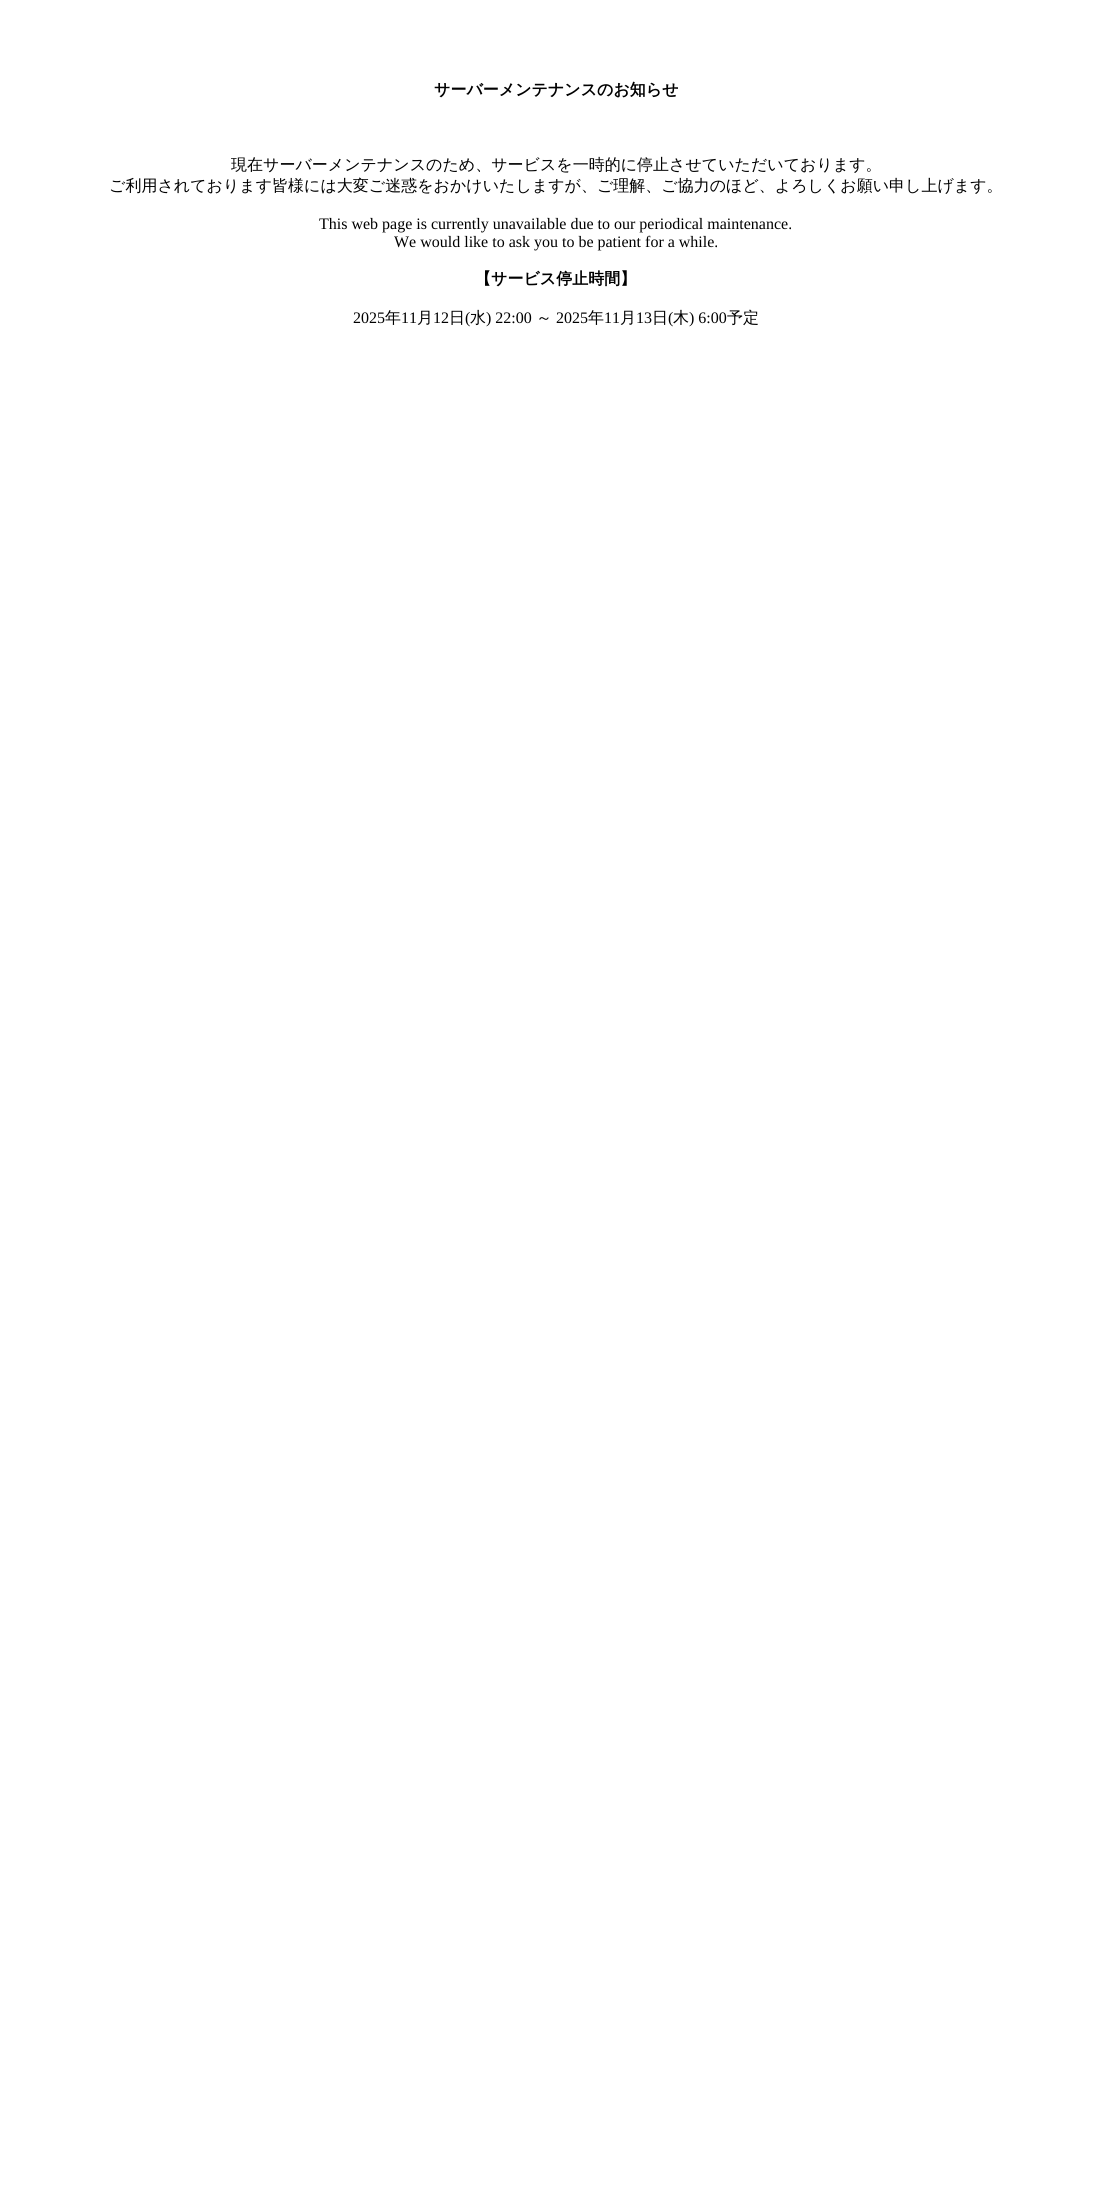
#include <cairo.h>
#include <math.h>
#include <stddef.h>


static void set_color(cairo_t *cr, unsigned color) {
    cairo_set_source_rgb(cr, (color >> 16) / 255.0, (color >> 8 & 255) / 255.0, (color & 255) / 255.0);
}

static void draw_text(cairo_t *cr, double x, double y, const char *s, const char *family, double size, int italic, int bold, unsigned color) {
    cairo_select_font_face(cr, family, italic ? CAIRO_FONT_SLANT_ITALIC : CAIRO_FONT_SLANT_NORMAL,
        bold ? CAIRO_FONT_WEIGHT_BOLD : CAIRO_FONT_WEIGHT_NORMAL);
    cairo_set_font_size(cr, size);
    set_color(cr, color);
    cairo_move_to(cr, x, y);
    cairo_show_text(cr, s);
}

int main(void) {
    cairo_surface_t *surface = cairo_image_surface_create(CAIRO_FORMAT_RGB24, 1112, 2194);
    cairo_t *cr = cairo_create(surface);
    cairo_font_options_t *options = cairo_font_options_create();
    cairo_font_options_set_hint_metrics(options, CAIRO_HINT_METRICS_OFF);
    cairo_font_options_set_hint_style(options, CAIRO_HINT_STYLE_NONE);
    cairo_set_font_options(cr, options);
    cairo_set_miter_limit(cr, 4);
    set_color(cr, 0xFFFFFF);
    cairo_paint(cr);
    draw_text(cr, 434, 95, "サーバーメンテナンスのお知らせ", "WenQuanYi Zen Hei", 16, 0, 1, 0x000000);
    draw_text(cr, 231, 170, "現在サーバーメンテナンスのため、サービスを一時的に停止させていただいております。", "WenQuanYi Zen Hei Medium", 16, 0, 0, 0x000000);
    draw_text(cr, 109, 191, "ご利用されております皆様には大変ご迷惑をおかけいたしますが、ご理解、ご協力のほど、よろしくお願い申し上げます。", "WenQuanYi Zen Hei Medium", 16, 0, 0, 0x000000);
    draw_text(cr, 319, 229, "This web page is currently unavailable due to our periodical maintenance.", "Liberation Serif", 16, 0, 0, 0x000000);
    draw_text(cr, 394, 247, "We would like to ask you to be patient for a while.", "Liberation Serif", 16, 0, 0, 0x000000);
    draw_text(cr, 475, 284, "【サービス停止時間】", "WenQuanYi Zen Hei", 16, 0, 1, 0x000000);
    draw_text(cr, 353, 323, "2025", "Liberation Serif", 16, 0, 0, 0x000000);
    draw_text(cr, 385, 323, "年", "WenQuanYi Zen Hei Medium", 16, 0, 0, 0x000000);
    draw_text(cr, 401, 323, "11", "Liberation Serif", 16, 0, 0, 0x000000);
    draw_text(cr, 417, 323, "月", "WenQuanYi Zen Hei Medium", 16, 0, 0, 0x000000);
    draw_text(cr, 433, 323, "12", "Liberation Serif", 16, 0, 0, 0x000000);
    draw_text(cr, 449, 323, "日", "WenQuanYi Zen Hei Medium", 16, 0, 0, 0x000000);
    draw_text(cr, 465, 323, "(", "Liberation Serif", 16, 0, 0, 0x000000);
    draw_text(cr, 470, 323, "水", "WenQuanYi Zen Hei Medium", 16, 0, 0, 0x000000);
    draw_text(cr, 486, 323, ") 22:00", "Liberation Serif", 16, 0, 0, 0x000000);
    draw_text(cr, 536, 323, "～", "WenQuanYi Zen Hei Medium", 16, 0, 0, 0x000000);
    draw_text(cr, 556, 323, "2025", "Liberation Serif", 16, 0, 0, 0x000000);
    draw_text(cr, 588, 323, "年", "WenQuanYi Zen Hei Medium", 16, 0, 0, 0x000000);
    draw_text(cr, 604, 323, "11", "Liberation Serif", 16, 0, 0, 0x000000);
    draw_text(cr, 620, 323, "月", "WenQuanYi Zen Hei Medium", 16, 0, 0, 0x000000);
    draw_text(cr, 636, 323, "13", "Liberation Serif", 16, 0, 0, 0x000000);
    draw_text(cr, 652, 323, "日", "WenQuanYi Zen Hei Medium", 16, 0, 0, 0x000000);
    draw_text(cr, 668, 323, "(", "Liberation Serif", 16, 0, 0, 0x000000);
    draw_text(cr, 673, 323, "木", "WenQuanYi Zen Hei Medium", 16, 0, 0, 0x000000);
    draw_text(cr, 689, 323, ") 6:00", "Liberation Serif", 16, 0, 0, 0x000000);
    draw_text(cr, 727, 323, "予定", "WenQuanYi Zen Hei Medium", 16, 0, 0, 0x000000);
    cairo_surface_write_to_png(surface, "output.png");
    cairo_font_options_destroy(options);
    cairo_destroy(cr);
    cairo_surface_destroy(surface);
    return 0;
}
